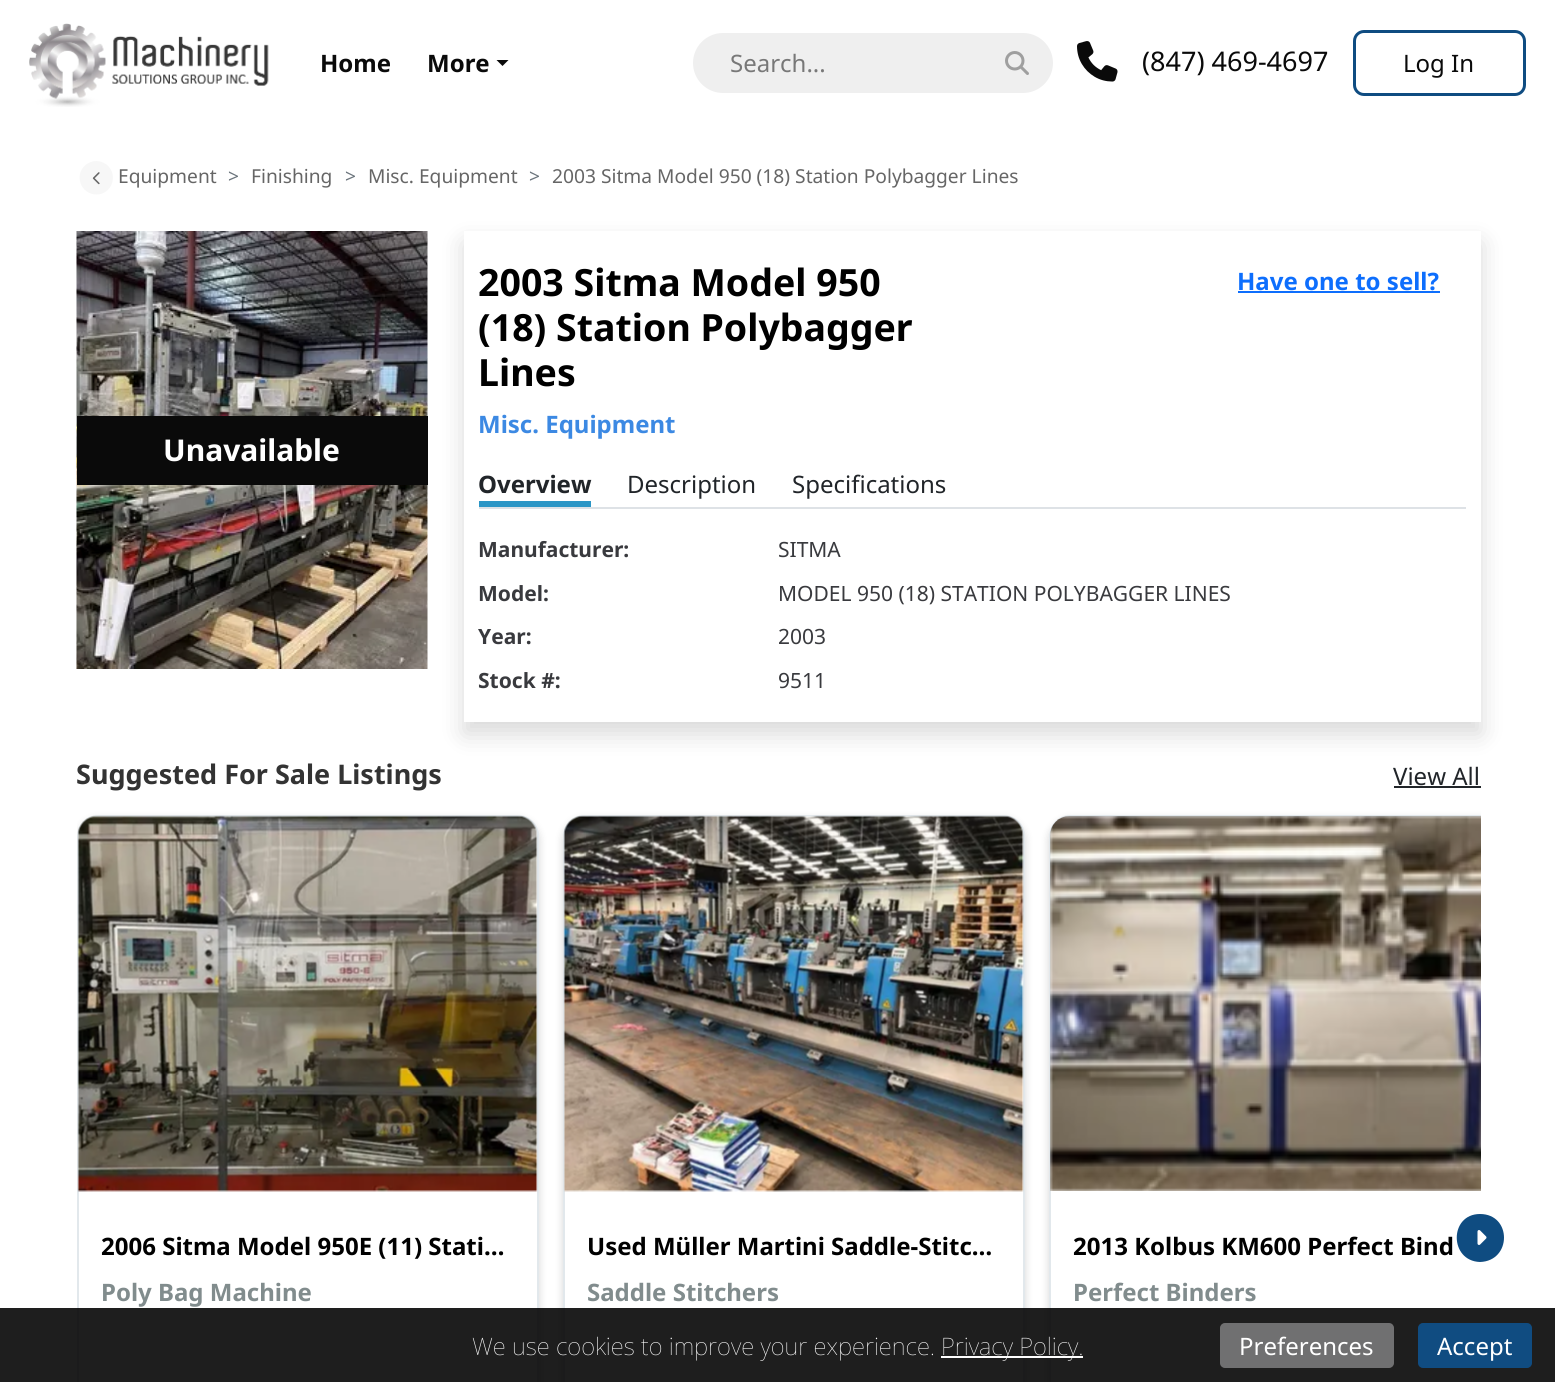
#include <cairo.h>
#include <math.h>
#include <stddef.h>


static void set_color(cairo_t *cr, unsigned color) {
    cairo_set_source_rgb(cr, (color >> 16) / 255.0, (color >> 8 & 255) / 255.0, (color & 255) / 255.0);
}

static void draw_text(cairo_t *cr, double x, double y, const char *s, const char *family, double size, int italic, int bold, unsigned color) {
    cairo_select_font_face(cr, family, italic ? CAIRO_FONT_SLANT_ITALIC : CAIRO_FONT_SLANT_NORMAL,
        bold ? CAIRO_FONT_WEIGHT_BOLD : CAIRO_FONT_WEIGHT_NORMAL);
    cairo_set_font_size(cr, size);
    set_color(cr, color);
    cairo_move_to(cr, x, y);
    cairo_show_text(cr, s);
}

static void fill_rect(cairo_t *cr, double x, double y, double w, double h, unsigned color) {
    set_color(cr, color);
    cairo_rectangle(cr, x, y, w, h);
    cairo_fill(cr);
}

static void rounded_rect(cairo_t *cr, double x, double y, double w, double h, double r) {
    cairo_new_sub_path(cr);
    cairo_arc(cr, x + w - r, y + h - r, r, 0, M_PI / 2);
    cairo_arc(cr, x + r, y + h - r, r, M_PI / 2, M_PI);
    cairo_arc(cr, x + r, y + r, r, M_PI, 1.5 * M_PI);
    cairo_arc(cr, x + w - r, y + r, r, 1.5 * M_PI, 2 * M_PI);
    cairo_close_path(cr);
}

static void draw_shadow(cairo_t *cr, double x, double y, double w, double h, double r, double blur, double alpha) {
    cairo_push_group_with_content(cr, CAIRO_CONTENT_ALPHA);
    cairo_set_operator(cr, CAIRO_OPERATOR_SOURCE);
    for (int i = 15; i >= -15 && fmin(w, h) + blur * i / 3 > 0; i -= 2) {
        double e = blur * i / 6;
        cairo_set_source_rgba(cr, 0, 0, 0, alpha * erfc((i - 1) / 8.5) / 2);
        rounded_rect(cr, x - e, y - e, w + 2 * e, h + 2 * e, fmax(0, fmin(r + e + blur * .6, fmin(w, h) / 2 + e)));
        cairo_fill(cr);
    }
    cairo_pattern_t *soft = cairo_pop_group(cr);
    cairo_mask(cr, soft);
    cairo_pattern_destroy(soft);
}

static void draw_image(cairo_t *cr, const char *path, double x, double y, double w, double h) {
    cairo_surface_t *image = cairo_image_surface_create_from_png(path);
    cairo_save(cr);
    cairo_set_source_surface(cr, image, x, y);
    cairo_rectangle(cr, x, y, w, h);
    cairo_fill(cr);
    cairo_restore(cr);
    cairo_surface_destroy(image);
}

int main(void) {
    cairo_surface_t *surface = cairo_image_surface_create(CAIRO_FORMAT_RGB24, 1555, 1382);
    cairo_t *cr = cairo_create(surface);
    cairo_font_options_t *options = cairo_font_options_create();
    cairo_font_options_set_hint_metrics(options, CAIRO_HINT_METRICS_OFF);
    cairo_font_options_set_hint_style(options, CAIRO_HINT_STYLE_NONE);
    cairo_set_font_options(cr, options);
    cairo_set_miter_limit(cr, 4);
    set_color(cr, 0xFFFFFF);
    cairo_paint(cr);
    draw_image(cr, "assets/img1.png", 29, 23, 240, 84);
    draw_text(cr, 320, 72, "Home", "Noto Sans", 24, 0, 1, 0x0A0A0A);
    draw_text(cr, 427, 72, "More", "Noto Sans", 24, 0, 1, 0x0A0A0A);
    cairo_new_path(cr);
    cairo_move_to(cr, 496.5, 60);
    cairo_line_to(cr, 508.5, 60);
    cairo_line_to(cr, 502.5, 66);
    cairo_close_path(cr);
    cairo_fill(cr);
    set_color(cr, 0xEFEFEF);
    rounded_rect(cr, 693, 33, 360, 60, 30);
    cairo_fill(cr);
    draw_text(cr, 730, 72, "Search...", "Noto Sans", 24, 0, 0, 0x787878);
    draw_image(cr, "assets/img2.png", 1005, 51, 24, 24);
    draw_image(cr, "assets/img3.png", 1077, 41, 41, 41);
    draw_text(cr, 1142, 71, "(847) 469-4697", "Noto Sans", 27, 0, 0, 0x0A0A0A);
    rounded_rect(cr, 1354.5, 31.5, 170, 63, 9.5);
    set_color(cr, 0x0F4C81);
    cairo_set_line_width(cr, 3);
    cairo_stroke(cr);
    draw_text(cr, 1403, 72, "Log In", "Noto Sans", 24, 0, 0, 0x0A0A0A);
    set_color(cr, 0xF7F7F7);
    cairo_new_path(cr);
    cairo_move_to(cr, 96.5, 194.5);
    cairo_curve_to(cr, 112, 194.5, 119, 174.5, 106.5, 164.5);
    cairo_curve_to(cr, 103.5, 162.5, 100, 161, 96.5, 161);
    cairo_curve_to(cr, 92.5, 161, 89, 162.5, 86, 164.5);
    cairo_curve_to(cr, 73.5, 174.5, 80.5, 194.5, 96.5, 194.5);
    cairo_close_path(cr);
    cairo_fill(cr);
    draw_image(cr, "assets/img4.png", 92, 172, 8, 13);
    draw_text(cr, 118, 183, "Equipment", "Noto Sans", 19.2, 0, 0, 0x666666);
    draw_text(cr, 228, 183, ">", "Noto Sans", 19.2, 0, 0, 0x6C757D);
    draw_text(cr, 251, 183, "Finishing", "Noto Sans", 19.2, 0, 0, 0x666666);
    draw_text(cr, 345, 183, ">", "Noto Sans", 19.2, 0, 0, 0x6C757D);
    draw_text(cr, 368, 183, "Misc. Equipment", "Noto Sans", 19.2, 0, 0, 0x666666);
    draw_text(cr, 529, 183, ">", "Noto Sans", 19.2, 0, 0, 0x6C757D);
    draw_text(cr, 552, 183, "2003 Sitma Model 950 (18) Station Polybagger Lines", "Noto Sans", 19.2, 0, 0, 0x666666);
    set_color(cr, 0x000000);
    draw_shadow(cr, 464, 243, 1017, 491, 0, 12, 0.15);
    draw_image(cr, "assets/img5.png", 76, 231, 352, 438);
    fill_rect(cr, 77, 416, 351, 69, 0x0A0A0A);
    draw_text(cr, 163, 461, "Unavailable", "Noto Sans", 30, 0, 1, 0xFFFFFF);
    fill_rect(cr, 464, 231, 1017, 491, 0xFFFFFF);
    draw_text(cr, 478, 296, "2003 Sitma Model 950", "Noto Sans", 37.5, 0, 1, 0x000000);
    draw_text(cr, 478, 341, "(18) Station Polybagger", "Noto Sans", 37.5, 0, 1, 0x000000);
    draw_text(cr, 478, 386, "Lines", "Noto Sans", 37.5, 0, 1, 0x000000);
    draw_text(cr, 1237, 290, "Have one to sell?", "Noto Sans", 24, 0, 1, 0x0D6EFD);
    fill_rect(cr, 1238, 291, 202, 2, 0x0D6EFD);
    draw_text(cr, 478, 433, "Misc. Equipment", "Noto Sans", 24, 0, 1, 0x3C89E3);
    fill_rect(cr, 479, 507, 987, 2, 0xDEE2E6);
    draw_text(cr, 478, 493, "Overview", "Noto Sans", 24, 0, 1, 0x212529);
    fill_rect(cr, 479, 501, 112, 6, 0x2B96C6);
    draw_text(cr, 627, 493, "Description", "Noto Sans", 24, 0, 0, 0x212529);
    draw_text(cr, 792, 493, "Specifications", "Noto Sans", 24, 0, 0, 0x212529);
    draw_text(cr, 478, 557, "Manufacturer:", "Noto Sans", 21, 0, 1, 0x393A3E);
    draw_text(cr, 778, 557, "SITMA", "Noto Sans", 21, 0, 0, 0x393A3E);
    draw_text(cr, 478, 601, "Model:", "Noto Sans", 21, 0, 1, 0x393A3E);
    draw_text(cr, 778, 601, "MODEL 950 (18) STATION POLYBAGGER LINES", "Noto Sans", 21, 0, 0, 0x393A3E);
    draw_text(cr, 478, 644, "Year:", "Noto Sans", 21, 0, 1, 0x393A3E);
    draw_text(cr, 778, 644, "2003", "Noto Sans", 21, 0, 0, 0x393A3E);
    draw_text(cr, 478, 688, "Stock #:", "Noto Sans", 21, 0, 1, 0x393A3E);
    draw_text(cr, 778, 688, "9511", "Noto Sans", 21, 0, 0, 0x393A3E);
    draw_text(cr, 76, 784, "Suggested For Sale Listings", "Noto Sans", 27, 0, 1, 0x333333);
    draw_text(cr, 1393, 785, "View All", "Noto Sans", 24, 0, 0, 0x212529);
    fill_rect(cr, 1394, 786, 87, 2, 0x212529);
    cairo_save(cr);
    cairo_rectangle(cr, 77, 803, 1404, 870);
    cairo_clip(cr);
    set_color(cr, 0x000000);
    draw_shadow(cr, 77, 819, 462, 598, 21, 4.5, 0.16);
    cairo_restore(cr);
    set_color(cr, 0xFFFFFF);
    rounded_rect(cr, 78, 816, 460, 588, 20);
    cairo_fill_preserve(cr);
    set_color(cr, 0xE2E8EC);
    cairo_set_line_width(cr, 2);
    cairo_stroke(cr);
    draw_image(cr, "assets/img6.png", 77, 815, 461, 377);
    draw_text(cr, 101, 1255, "2006 Sitma Model 950E (11) Stati…", "Noto Sans", 24, 0, 1, 0x000000);
    draw_text(cr, 101, 1301, "Poly Bag Machine", "Noto Sans", 24, 0, 1, 0x818C8D);
    set_color(cr, 0x000000);
    draw_shadow(cr, 563, 819, 462, 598, 21, 4.5, 0.16);
    set_color(cr, 0xFFFFFF);
    rounded_rect(cr, 564, 816, 460, 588, 20);
    cairo_fill_preserve(cr);
    set_color(cr, 0xE2E8EC);
    cairo_stroke(cr);
    draw_image(cr, "assets/img7.png", 563, 815, 461, 377);
    draw_text(cr, 587, 1255, "Used Müller Martini Saddle-Stitc…", "Noto Sans", 24, 0, 1, 0x000000);
    draw_text(cr, 587, 1301, "Saddle Stitchers", "Noto Sans", 24, 0, 1, 0x818C8D);
    cairo_save(cr);
    cairo_rectangle(cr, 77, 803, 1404, 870);
    cairo_clip(cr);
    cairo_set_fill_rule(cr, CAIRO_FILL_RULE_EVEN_ODD);
    cairo_new_path(cr);
    cairo_move_to(cr, 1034, 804);
    cairo_line_to(cr, 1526, 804);
    cairo_line_to(cr, 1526, 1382);
    cairo_line_to(cr, 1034, 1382);
    cairo_close_path(cr);
    cairo_move_to(cr, 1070, 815);
    cairo_line_to(cr, 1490, 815);
    cairo_curve_to(cr, 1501.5, 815, 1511, 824.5, 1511, 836);
    cairo_line_to(cr, 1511, 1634);
    cairo_curve_to(cr, 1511, 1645.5, 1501.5, 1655, 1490, 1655);
    cairo_line_to(cr, 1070, 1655);
    cairo_curve_to(cr, 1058.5, 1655, 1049, 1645.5, 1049, 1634);
    cairo_line_to(cr, 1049, 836);
    cairo_curve_to(cr, 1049, 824.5, 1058.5, 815, 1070, 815);
    cairo_close_path(cr);
    cairo_clip(cr);
    set_color(cr, 0x000000);
    draw_shadow(cr, 1049, 819, 462, 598, 21, 4.5, 0.16);
    cairo_restore(cr);
    cairo_save(cr);
    cairo_rectangle(cr, 77, 803, 1404, 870);
    cairo_clip(cr);
    rounded_rect(cr, 1050, 816, 460, 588, 20);
    set_color(cr, 0xE2E8EC);
    cairo_stroke(cr);
    cairo_restore(cr);
    draw_image(cr, "assets/img8.png", 1050, 816, 431, 375);
    draw_text(cr, 1073, 1255, "2013 Kolbus KM600 Perfect Bind", "Noto Sans", 24, 0, 1, 0x000000);
    draw_text(cr, 1073, 1301, "Perfect Binders", "Noto Sans", 24, 0, 1, 0x818C8D);
    set_color(cr, 0x0F4C81);
    cairo_new_path(cr);
    cairo_move_to(cr, 1480, 1262);
    cairo_curve_to(cr, 1512, 1261, 1512, 1214, 1480, 1214);
    cairo_curve_to(cr, 1449, 1214, 1449, 1261, 1480, 1262);
    cairo_close_path(cr);
    cairo_fill(cr);
    draw_image(cr, "assets/img9.png", 1477, 1230, 10, 15);
    cairo_set_source_rgba(cr, 0, 0, 0, 0.88);
    cairo_rectangle(cr, 0, 1308, 1555, 74);
    cairo_fill(cr);
    draw_text(cr, 472, 1355, "We use cookies to improve your experience.", "Noto Sans Thin", 24, 0, 0, 0xFFFFFF);
    fill_rect(cr, 941, 1356, 142, 2, 0xFFFFFF);
    draw_text(cr, 941, 1355, "Privacy Policy.", "Noto Sans Thin", 24, 0, 0, 0xFFFFFF);
    set_color(cr, 0x707071);
    rounded_rect(cr, 1221, 1324, 172, 43, 4);
    cairo_fill_preserve(cr);
    cairo_stroke(cr);
    draw_text(cr, 1239, 1355, "Preferences", "Noto Sans", 24, 0, 0, 0xFFFFFF);
    set_color(cr, 0x104C81);
    rounded_rect(cr, 1419, 1324, 112, 43, 4);
    cairo_fill_preserve(cr);
    cairo_stroke(cr);
    draw_text(cr, 1437, 1355, "Accept", "Noto Sans", 24, 0, 0, 0xFFFFFF);
    cairo_surface_write_to_png(surface, "output.png");
    cairo_font_options_destroy(options);
    cairo_destroy(cr);
    cairo_surface_destroy(surface);
    return 0;
}
